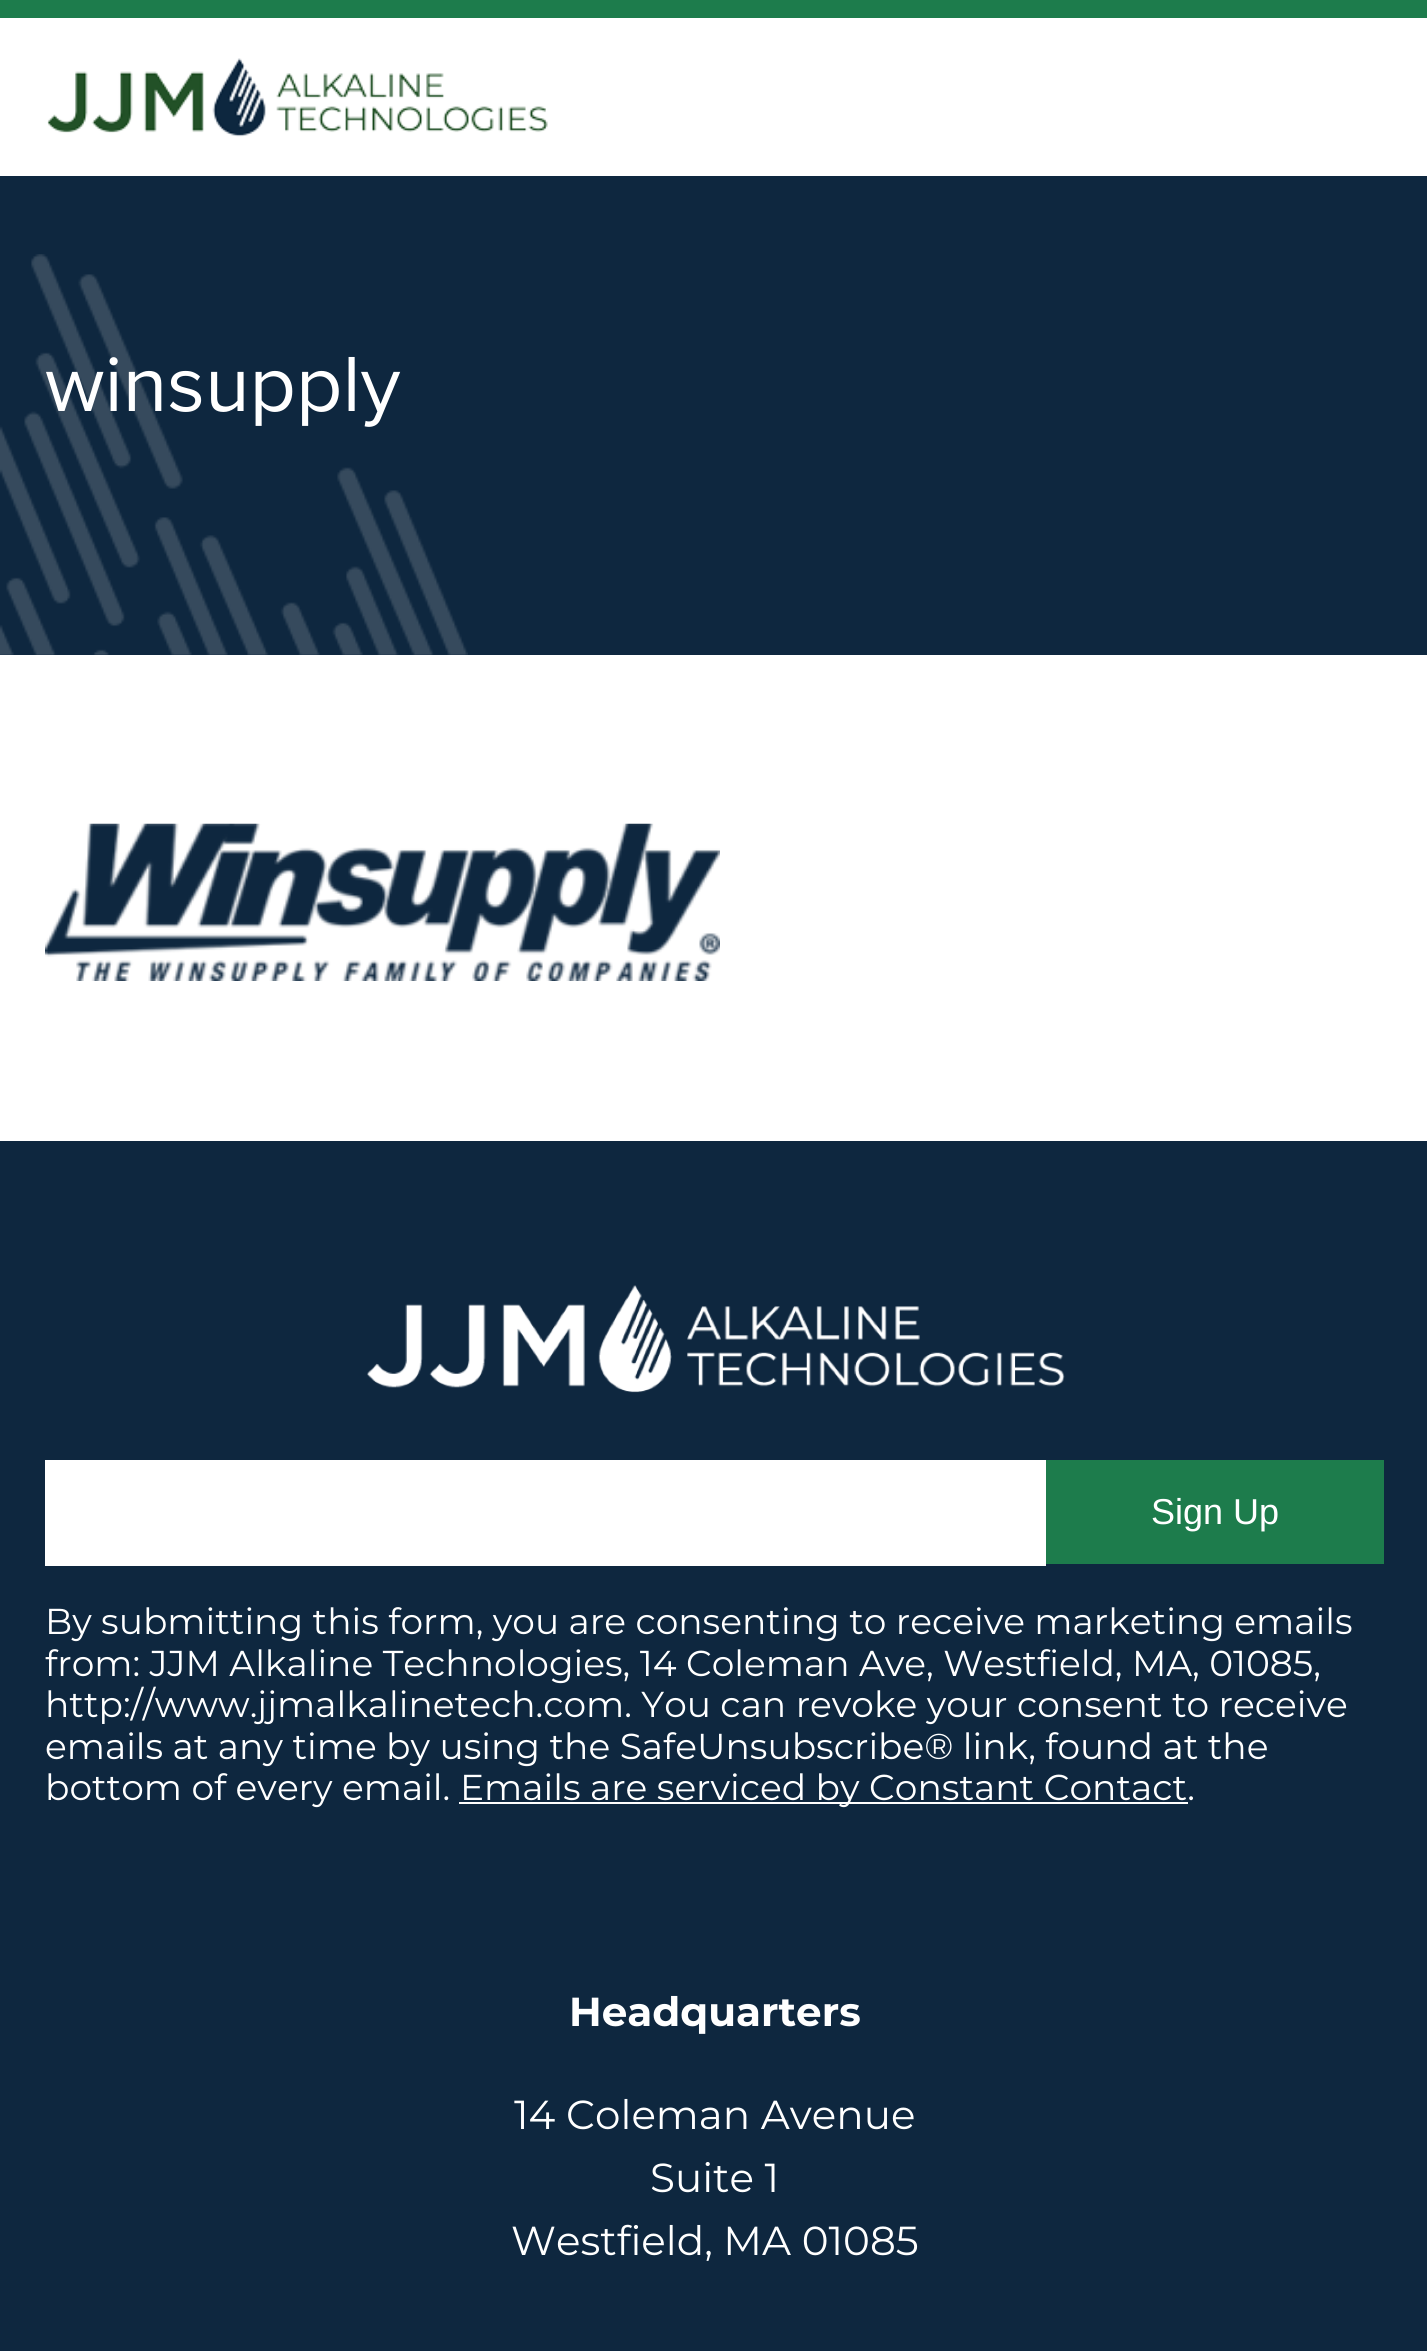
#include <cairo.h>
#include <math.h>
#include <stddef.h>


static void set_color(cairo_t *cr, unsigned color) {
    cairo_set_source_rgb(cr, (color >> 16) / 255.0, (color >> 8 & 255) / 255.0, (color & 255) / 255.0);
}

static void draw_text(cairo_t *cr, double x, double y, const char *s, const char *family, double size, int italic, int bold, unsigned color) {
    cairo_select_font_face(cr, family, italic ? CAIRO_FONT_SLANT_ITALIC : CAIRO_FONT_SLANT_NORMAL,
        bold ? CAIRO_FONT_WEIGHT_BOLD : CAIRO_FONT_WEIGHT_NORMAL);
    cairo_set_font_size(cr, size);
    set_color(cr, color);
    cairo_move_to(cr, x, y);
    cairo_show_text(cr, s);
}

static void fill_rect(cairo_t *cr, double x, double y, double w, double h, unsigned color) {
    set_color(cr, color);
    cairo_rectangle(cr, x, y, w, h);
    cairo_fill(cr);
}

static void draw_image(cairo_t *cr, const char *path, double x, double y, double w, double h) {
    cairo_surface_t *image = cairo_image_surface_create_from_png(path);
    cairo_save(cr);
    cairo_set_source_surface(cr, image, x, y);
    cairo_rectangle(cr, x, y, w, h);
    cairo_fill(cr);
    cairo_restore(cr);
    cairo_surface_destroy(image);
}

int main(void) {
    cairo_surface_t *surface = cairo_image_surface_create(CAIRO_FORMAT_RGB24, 1427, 2351);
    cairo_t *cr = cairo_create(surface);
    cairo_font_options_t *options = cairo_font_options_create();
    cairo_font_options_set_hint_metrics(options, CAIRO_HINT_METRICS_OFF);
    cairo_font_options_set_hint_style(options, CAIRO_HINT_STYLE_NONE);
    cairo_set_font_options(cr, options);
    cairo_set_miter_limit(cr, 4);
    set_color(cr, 0xFFFFFF);
    cairo_paint(cr);
    fill_rect(cr, 0, 0, 1427, 18, 0x1D7C4C);
    draw_image(cr, "assets/img1.png", 47, 58, 501, 79);
    fill_rect(cr, 0, 176, 1427, 479, 0x0E273F);
    draw_image(cr, "assets/img2.png", 0, 254, 468, 401);
    draw_text(cr, 45, 411, "winsupply", "Proxima Nova", 81, 0, 0, 0xFFFFFF);
    draw_image(cr, "assets/img3.png", 45, 823, 675, 158);
    fill_rect(cr, 0, 1141, 1427, 1210, 0x0E273F);
    draw_image(cr, "assets/img4.png", 367, 1285, 698, 108);
    fill_rect(cr, 45, 1460, 1001, 106, 0xFFFFFF);
    fill_rect(cr, 1046, 1460, 338, 104, 0x1D7C4C);
    draw_text(cr, 1151, 1524, "Sign Up", "Liberation Sans", 36, 0, 0, 0xFFFFFF);
    draw_text(cr, 45, 1634, "By submitting this form, you are consenting to receive marketing emails", "Montserrat", 36, 0, 0, 0xFFFFFF);
    draw_text(cr, 45, 1676, "from: JJM Alkaline Technologies, 14 Coleman Ave, Westfield, MA, 01085,", "Montserrat", 36, 0, 0, 0xFFFFFF);
    draw_text(cr, 45, 1717, "http://www.jjmalkalinetech.com. You can revoke your consent to receive", "Montserrat", 36, 0, 0, 0xFFFFFF);
    draw_text(cr, 45, 1759, "emails at any time by using the SafeUnsubscribe® link, found at the", "Montserrat", 36, 0, 0, 0xFFFFFF);
    draw_text(cr, 45, 1800, "bottom of every email.", "Montserrat", 36, 0, 0, 0xFFFFFF);
    fill_rect(cr, 459, 1802, 729, 2, 0xFFFFFF);
    draw_text(cr, 460, 1800, "Emails are serviced by Constant Contact.", "Montserrat", 36, 0, 0, 0xFFFFFF);
    draw_text(cr, 569, 2026, "Headquarters", "Montserrat", 40.5, 0, 1, 0xFFFFFF);
    draw_text(cr, 514, 2129, "14 Coleman Avenue", "Montserrat", 40.5, 0, 0, 0xFFFFFF);
    draw_text(cr, 650, 2192, "Suite 1", "Montserrat", 40.5, 0, 0, 0xFFFFFF);
    draw_text(cr, 511, 2255, "Westfield, MA 01085", "Montserrat", 40.5, 0, 0, 0xFFFFFF);
    cairo_surface_write_to_png(surface, "output.png");
    cairo_font_options_destroy(options);
    cairo_destroy(cr);
    cairo_surface_destroy(surface);
    return 0;
}
